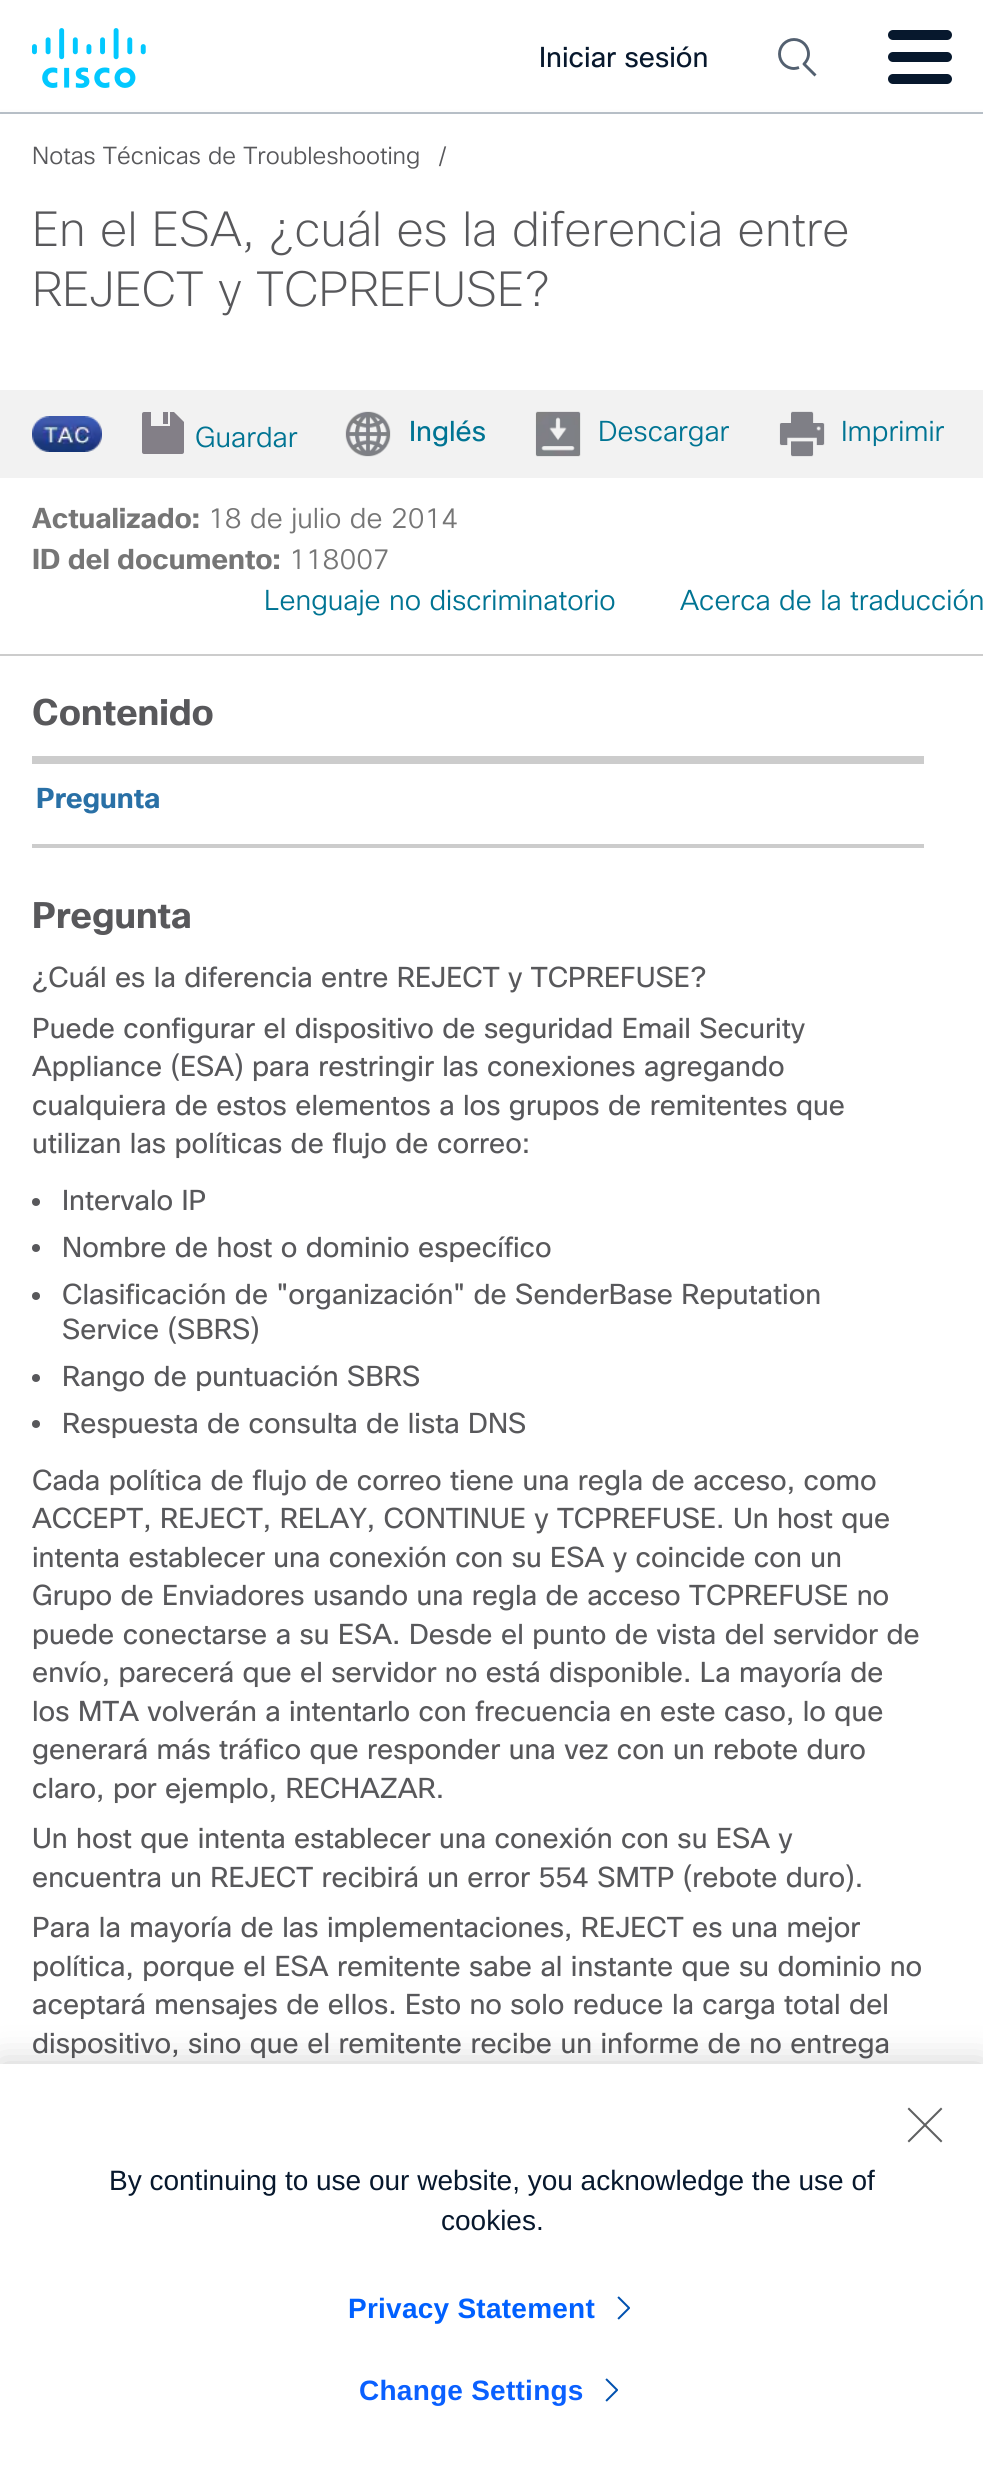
#include <cairo.h>
#include <math.h>
#include <stddef.h>


static void set_color(cairo_t *cr, unsigned color) {
    cairo_set_source_rgb(cr, (color >> 16) / 255.0, (color >> 8 & 255) / 255.0, (color & 255) / 255.0);
}

static void draw_text(cairo_t *cr, double x, double y, const char *s, const char *family, double size, int italic, int bold, unsigned color) {
    cairo_select_font_face(cr, family, italic ? CAIRO_FONT_SLANT_ITALIC : CAIRO_FONT_SLANT_NORMAL,
        bold ? CAIRO_FONT_WEIGHT_BOLD : CAIRO_FONT_WEIGHT_NORMAL);
    cairo_set_font_size(cr, size);
    set_color(cr, color);
    cairo_move_to(cr, x, y);
    cairo_show_text(cr, s);
}

static void draw_spaced(cairo_t *cr, double x, double y, const char *s, double letter, double word) {
    cairo_move_to(cr, x, y);
    while (*s) {
        char ch[5] = {0};
        int n = 0;
        do ch[n++] = *s++; while ((*s & 0xC0) == 0x80);
        cairo_show_text(cr, ch);
        cairo_rel_move_to(cr, letter + word * (*ch == ' '), 0);
    }
}

static void fill_rect(cairo_t *cr, double x, double y, double w, double h, unsigned color) {
    set_color(cr, color);
    cairo_rectangle(cr, x, y, w, h);
    cairo_fill(cr);
}

static void rounded_rect(cairo_t *cr, double x, double y, double w, double h, double r) {
    cairo_new_sub_path(cr);
    cairo_arc(cr, x + w - r, y + h - r, r, 0, M_PI / 2);
    cairo_arc(cr, x + r, y + h - r, r, M_PI / 2, M_PI);
    cairo_arc(cr, x + r, y + r, r, M_PI, 1.5 * M_PI);
    cairo_arc(cr, x + w - r, y + r, r, 1.5 * M_PI, 2 * M_PI);
    cairo_close_path(cr);
}

static void draw_shadow(cairo_t *cr, double x, double y, double w, double h, double r, double blur, double alpha) {
    cairo_push_group_with_content(cr, CAIRO_CONTENT_ALPHA);
    cairo_set_operator(cr, CAIRO_OPERATOR_SOURCE);
    for (int i = 15; i >= -15 && fmin(w, h) + blur * i / 3 > 0; i -= 2) {
        double e = blur * i / 6;
        cairo_set_source_rgba(cr, 0, 0, 0, alpha * erfc((i - 1) / 8.5) / 2);
        rounded_rect(cr, x - e, y - e, w + 2 * e, h + 2 * e, fmax(0, fmin(r + e + blur * .6, fmin(w, h) / 2 + e)));
        cairo_fill(cr);
    }
    cairo_pattern_t *soft = cairo_pop_group(cr);
    cairo_mask(cr, soft);
    cairo_pattern_destroy(soft);
}

static void draw_image(cairo_t *cr, const char *path, double x, double y, double w, double h) {
    cairo_surface_t *image = cairo_image_surface_create_from_png(path);
    cairo_save(cr);
    cairo_set_source_surface(cr, image, x, y);
    cairo_rectangle(cr, x, y, w, h);
    cairo_fill(cr);
    cairo_restore(cr);
    cairo_surface_destroy(image);
}

int main(void) {
    cairo_surface_t *surface = cairo_image_surface_create(CAIRO_FORMAT_RGB24, 983, 2483);
    cairo_t *cr = cairo_create(surface);
    cairo_font_options_t *options = cairo_font_options_create();
    cairo_font_options_set_hint_metrics(options, CAIRO_HINT_METRICS_OFF);
    cairo_font_options_set_hint_style(options, CAIRO_HINT_STYLE_NONE);
    cairo_set_font_options(cr, options);
    cairo_set_miter_limit(cr, 4);
    set_color(cr, 0xFFFFFF);
    cairo_paint(cr);
    fill_rect(cr, 0, 112, 983, 2, 0xB9C1C9);
    draw_image(cr, "assets/img1.png", 32, 28, 114, 60);
    draw_text(cr, 539, 67, "Iniciar sesión", "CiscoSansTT", 28, 0, 0, 0x07182D);
    cairo_new_path(cr);
    cairo_move_to(cr, 799, 67.5);
    cairo_curve_to(cr, 797.5, 68, 795.5, 68.5, 794, 68.5);
    cairo_curve_to(cr, 786, 68.5, 779.5, 62, 779.5, 54);
    cairo_curve_to(cr, 779.5, 46, 786, 39.5, 794, 39.5);
    cairo_curve_to(cr, 802, 39.5, 808.5, 46, 808.5, 54);
    cairo_curve_to(cr, 808.5, 58, 806.5, 61.5, 804, 64);
    cairo_line_to(cr, 815.5, 75.5);
    set_color(cr, 0x536070);
    cairo_set_line_width(cr, 2.9);
    cairo_set_line_join(cr, CAIRO_LINE_JOIN_ROUND);
    cairo_stroke(cr);
    set_color(cr, 0x07182D);
    rounded_rect(cr, 888, 30, 64, 10, 5);
    cairo_fill(cr);
    rounded_rect(cr, 888, 52, 64, 10, 5);
    cairo_fill(cr);
    rounded_rect(cr, 888, 74, 64, 10, 5);
    cairo_fill(cr);
    set_color(cr, 0x000000);
    draw_shadow(cr, 0, 118, 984, 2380, 0, 5, 0.12);
    fill_rect(cr, 0, 114, 983, 1950, 0xFFFFFF);
    draw_text(cr, 32, 164, "Notas Técnicas de Troubleshooting", "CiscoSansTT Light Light", 24, 0, 0, 0x58585B);
    draw_text(cr, 438, 164, "/", "CiscoSansTT Light Light", 24, 0, 0, 0x58585B);
    draw_text(cr, 32, 246, "En el ESA, ¿cuál es la diferencia entre", "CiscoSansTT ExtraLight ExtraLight", 48, 0, 0, 0x58585B);
    draw_text(cr, 32, 306, "REJECT y TCPREFUSE?", "CiscoSansTT ExtraLight ExtraLight", 48, 0, 0, 0x58585B);
    fill_rect(cr, 0, 654, 983, 2, 0xCCCCCC);
    fill_rect(cr, 0, 390, 983, 88, 0xF2F2F2);
    draw_image(cr, "assets/img2.png", 32, 416, 70, 36);
    draw_image(cr, "assets/img3.png", 142, 412, 42, 42);
    draw_text(cr, 195, 447, "Guardar", "CiscoSansTT Light Light", 28, 0, 0, 0x007493);
    draw_image(cr, "assets/img4.png", 345, 411, 46, 46);
    draw_text(cr, 409, 441, "Inglés", "CiscoSansTT", 28, 0, 0, 0x007493);
    draw_image(cr, "assets/img5.png", 535, 411, 46, 46);
    draw_text(cr, 598, 441, "Descargar", "CiscoSansTT Light Light", 28, 0, 0, 0x007493);
    draw_image(cr, "assets/img6.png", 779, 411, 46, 46);
    draw_text(cr, 841, 441, "Imprimir", "CiscoSansTT Light Light", 28, 0, 0, 0x007493);
    draw_text(cr, 32, 528, "Actualizado:", "CiscoSansTT", 28, 0, 1, 0x767676);
    draw_text(cr, 208, 528, "18 de julio de 2014", "CiscoSansTT Light Light", 28, 0, 0, 0x767676);
    draw_text(cr, 32, 569, "ID del documento:", "CiscoSansTT", 28, 0, 1, 0x767676);
    draw_text(cr, 289, 569, "118007", "CiscoSansTT Light Light", 28, 0, 0, 0x767676);
    draw_text(cr, 264, 610, "Lenguaje no discriminatorio", "CiscoSansTT Light Light", 28, 0, 0, 0x007493);
    draw_text(cr, 680, 610, "Acerca de la traducción", "CiscoSansTT Light Light", 28, 0, 0, 0x007493);
    fill_rect(cr, 32, 844, 892, 4, 0xCCCCCC);
    fill_rect(cr, 32, 756, 892, 8, 0xCCCCCC);
    draw_text(cr, 32, 725, "Contenido", "CiscoSansTT", 36, 0, 1, 0x58585B);
    draw_text(cr, 36, 808, "Pregunta", "CiscoSansTT", 28, 0, 1, 0x2970A6);
    draw_text(cr, 32, 928, "Pregunta", "CiscoSansTT", 36, 0, 1, 0x58585B);
    draw_text(cr, 32, 987, "¿Cuál es la diferencia entre REJECT y TCPREFUSE?", "CiscoSansTT", 28, 0, 0, 0x58585B);
    draw_text(cr, 32, 1038, "Puede configurar el dispositivo de seguridad Email Security", "CiscoSansTT", 28, 0, 0, 0x58585B);
    draw_text(cr, 32, 1076, "Appliance (ESA) para restringir las conexiones agregando", "CiscoSansTT", 28, 0, 0, 0x58585B);
    draw_text(cr, 32, 1115, "cualquiera de estos elementos a los grupos de remitentes que", "CiscoSansTT", 28, 0, 0, 0x58585B);
    draw_text(cr, 32, 1153, "utilizan las políticas de flujo de correo:", "CiscoSansTT", 28, 0, 0, 0x58585B);
    cairo_new_path(cr);
    cairo_arc(cr, 36, 1202, 4, 0, 2 * M_PI);
    cairo_fill(cr);
    draw_text(cr, 62, 1210, "Intervalo IP", "CiscoSansTT", 28, 0, 0, 0x58585B);
    cairo_new_path(cr);
    cairo_arc(cr, 36, 1248, 4, 0, 2 * M_PI);
    cairo_fill(cr);
    draw_text(cr, 62, 1257, "Nombre de host o dominio específico", "CiscoSansTT", 28, 0, 0, 0x58585B);
    cairo_new_path(cr);
    cairo_arc(cr, 36, 1296, 4, 0, 2 * M_PI);
    cairo_fill(cr);
    draw_text(cr, 62, 1304, "Clasificación de \"organización\" de SenderBase Reputation", "CiscoSansTT", 28, 0, 0, 0x58585B);
    draw_text(cr, 62, 1339, "Service (SBRS)", "CiscoSansTT", 28, 0, 0, 0x58585B);
    cairo_new_path(cr);
    cairo_arc(cr, 36, 1378, 4, 0, 2 * M_PI);
    cairo_fill(cr);
    draw_text(cr, 62, 1386, "Rango de puntuación SBRS", "CiscoSansTT", 28, 0, 0, 0x58585B);
    cairo_new_path(cr);
    cairo_arc(cr, 36, 1424, 4, 0, 2 * M_PI);
    cairo_fill(cr);
    draw_text(cr, 62, 1433, "Respuesta de consulta de lista DNS", "CiscoSansTT", 28, 0, 0, 0x58585B);
    draw_text(cr, 32, 1490, "Cada política de flujo de correo tiene una regla de acceso, como", "CiscoSansTT", 28, 0, 0, 0x58585B);
    draw_text(cr, 32, 1528, "ACCEPT, REJECT, RELAY, CONTINUE y TCPREFUSE. Un host que", "CiscoSansTT", 28, 0, 0, 0x58585B);
    draw_text(cr, 32, 1567, "intenta establecer una conexión con su ESA y coincide con un", "CiscoSansTT", 28, 0, 0, 0x58585B);
    draw_text(cr, 32, 1605, "Grupo de Enviadores usando una regla de acceso TCPREFUSE no", "CiscoSansTT", 28, 0, 0, 0x58585B);
    draw_text(cr, 32, 1644, "puede conectarse a su ESA. Desde el punto de vista del servidor de", "CiscoSansTT", 28, 0, 0, 0x58585B);
    draw_text(cr, 32, 1682, "envío, parecerá que el servidor no está disponible. La mayoría de", "CiscoSansTT", 28, 0, 0, 0x58585B);
    draw_text(cr, 32, 1721, "los MTA volverán a intentarlo con frecuencia en este caso, lo que", "CiscoSansTT", 28, 0, 0, 0x58585B);
    draw_text(cr, 32, 1759, "generará más tráfico que responder una vez con un rebote duro", "CiscoSansTT", 28, 0, 0, 0x58585B);
    draw_text(cr, 32, 1798, "claro, por ejemplo, RECHAZAR.", "CiscoSansTT", 28, 0, 0, 0x58585B);
    draw_text(cr, 32, 1848, "Un host que intenta establecer una conexión con su ESA y", "CiscoSansTT", 28, 0, 0, 0x58585B);
    draw_text(cr, 32, 1887, "encuentra un REJECT recibirá un error 554 SMTP (rebote duro).", "CiscoSansTT", 28, 0, 0, 0x58585B);
    draw_text(cr, 32, 1937, "Para la mayoría de las implementaciones, REJECT es una mejor", "CiscoSansTT", 28, 0, 0, 0x58585B);
    draw_text(cr, 32, 1976, "política, porque el ESA remitente sabe al instante que su dominio no", "CiscoSansTT", 28, 0, 0, 0x58585B);
    draw_text(cr, 32, 2014, "aceptará mensajes de ellos. Esto no solo reduce la carga total del", "CiscoSansTT", 28, 0, 0, 0x58585B);
    draw_text(cr, 32, 2053, "dispositivo, sino que el remitente recibe un informe de no entrega", "CiscoSansTT", 28, 0, 0, 0x58585B);
    set_color(cr, 0x000000);
    draw_shadow(cr, 0, 2064, 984, 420, 0, 18, 0.2);
    fill_rect(cr, 0, 2064, 983, 419, 0xFFFFFF);
    draw_image(cr, "assets/img7.png", 907, 2107, 36, 36);
    draw_text(cr, 109, 2190, "By continuing to use our website, you acknowledge the use of", "Liberation Sans", 28, 0, 0, 0x07182D);
    draw_text(cr, 441, 2230, "cookies.", "Liberation Sans", 28, 0, 0, 0x07182D);
    cairo_select_font_face(cr, "Liberation Sans", CAIRO_FONT_SLANT_NORMAL, CAIRO_FONT_WEIGHT_BOLD);
    set_color(cr, 0x0060FF);
    draw_spaced(cr, 348, 2318, "Privacy Statement", 0.25, 0);
    draw_image(cr, "assets/img8.png", 617, 2296, 13, 24);
    set_color(cr, 0x0A60FF);
    draw_spaced(cr, 359, 2400, "Change Settings", 0.25, 0);
    draw_image(cr, "assets/img8.png", 605, 2378, 13, 24);
    cairo_surface_write_to_png(surface, "output.png");
    cairo_font_options_destroy(options);
    cairo_destroy(cr);
    cairo_surface_destroy(surface);
    return 0;
}
